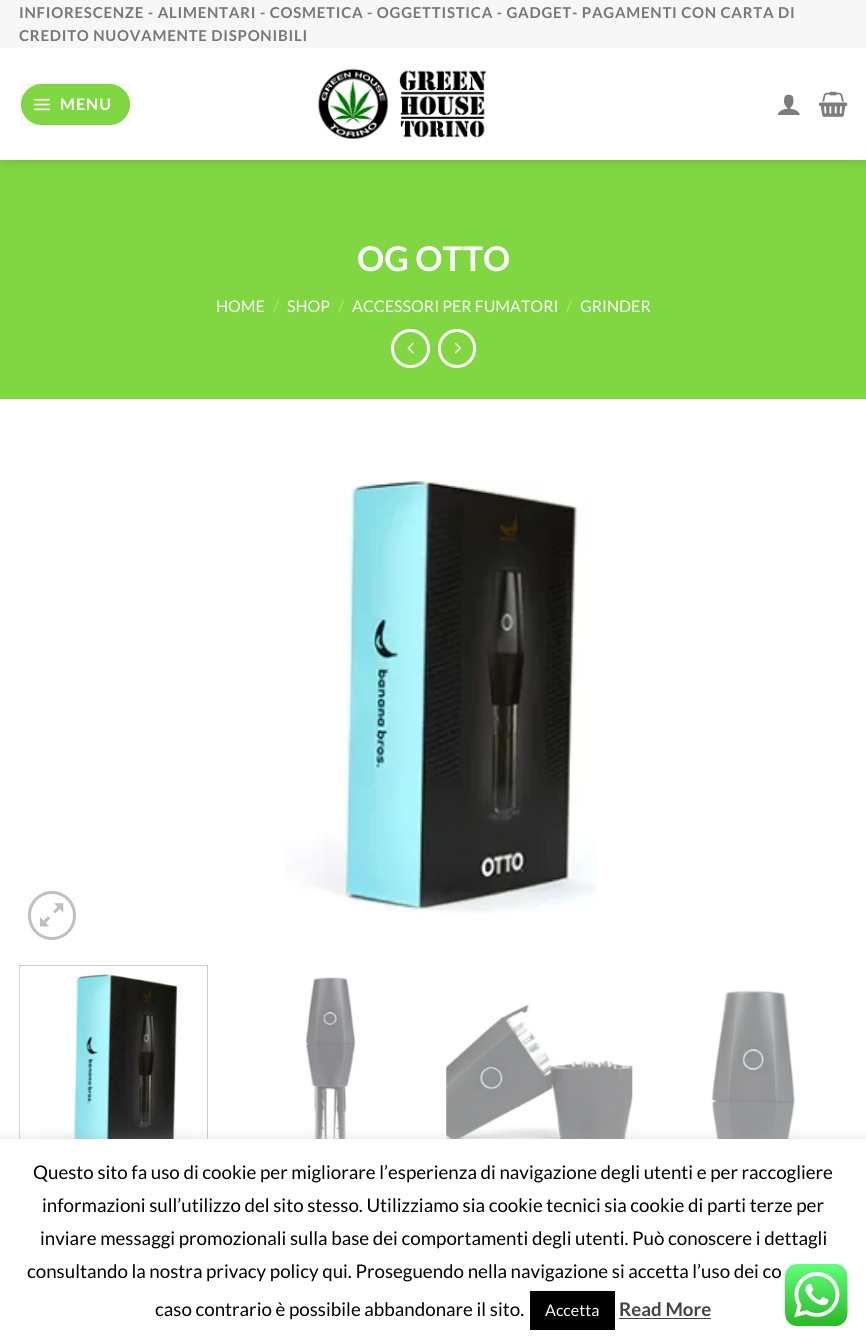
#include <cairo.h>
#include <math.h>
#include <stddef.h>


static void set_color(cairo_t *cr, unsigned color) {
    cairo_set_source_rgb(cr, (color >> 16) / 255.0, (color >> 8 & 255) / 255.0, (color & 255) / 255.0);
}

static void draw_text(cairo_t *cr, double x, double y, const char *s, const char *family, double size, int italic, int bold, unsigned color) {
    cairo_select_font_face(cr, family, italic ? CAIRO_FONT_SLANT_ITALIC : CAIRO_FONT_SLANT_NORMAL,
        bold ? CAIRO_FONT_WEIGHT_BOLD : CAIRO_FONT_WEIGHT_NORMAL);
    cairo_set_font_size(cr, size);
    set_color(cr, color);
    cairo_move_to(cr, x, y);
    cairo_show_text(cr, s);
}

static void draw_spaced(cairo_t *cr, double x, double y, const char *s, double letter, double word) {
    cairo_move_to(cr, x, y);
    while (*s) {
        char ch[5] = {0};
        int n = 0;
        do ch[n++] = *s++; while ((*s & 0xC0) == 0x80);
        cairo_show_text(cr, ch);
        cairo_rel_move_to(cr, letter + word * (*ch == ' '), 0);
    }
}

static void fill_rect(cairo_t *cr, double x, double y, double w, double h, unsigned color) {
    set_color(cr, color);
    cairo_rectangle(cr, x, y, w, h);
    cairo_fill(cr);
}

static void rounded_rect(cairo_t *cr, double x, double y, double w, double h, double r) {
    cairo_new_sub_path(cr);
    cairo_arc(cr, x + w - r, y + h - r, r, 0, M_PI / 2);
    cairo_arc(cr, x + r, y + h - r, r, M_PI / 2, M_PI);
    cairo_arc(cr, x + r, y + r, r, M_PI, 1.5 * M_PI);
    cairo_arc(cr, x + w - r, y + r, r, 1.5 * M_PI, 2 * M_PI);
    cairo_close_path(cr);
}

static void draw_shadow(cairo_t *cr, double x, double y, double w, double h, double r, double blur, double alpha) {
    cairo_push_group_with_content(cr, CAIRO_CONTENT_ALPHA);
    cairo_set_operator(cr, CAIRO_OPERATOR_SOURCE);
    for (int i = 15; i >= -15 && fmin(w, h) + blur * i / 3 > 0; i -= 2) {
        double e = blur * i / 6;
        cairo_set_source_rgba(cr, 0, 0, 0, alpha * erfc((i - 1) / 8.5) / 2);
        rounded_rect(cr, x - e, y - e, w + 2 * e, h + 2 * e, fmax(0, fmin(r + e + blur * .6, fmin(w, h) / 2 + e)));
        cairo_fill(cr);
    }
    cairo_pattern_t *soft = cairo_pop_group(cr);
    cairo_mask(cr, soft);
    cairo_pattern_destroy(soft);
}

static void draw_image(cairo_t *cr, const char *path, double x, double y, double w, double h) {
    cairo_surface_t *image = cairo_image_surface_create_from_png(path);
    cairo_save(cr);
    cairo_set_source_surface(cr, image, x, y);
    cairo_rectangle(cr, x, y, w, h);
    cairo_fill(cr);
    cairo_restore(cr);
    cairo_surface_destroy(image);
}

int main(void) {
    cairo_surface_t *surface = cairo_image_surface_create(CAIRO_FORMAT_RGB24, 866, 1344);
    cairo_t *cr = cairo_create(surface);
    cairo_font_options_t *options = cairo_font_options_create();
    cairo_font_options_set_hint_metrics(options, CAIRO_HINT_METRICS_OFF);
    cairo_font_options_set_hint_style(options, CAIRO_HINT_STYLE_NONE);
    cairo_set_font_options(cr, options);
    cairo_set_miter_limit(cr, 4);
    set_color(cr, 0xFFFFFF);
    cairo_paint(cr);
    fill_rect(cr, 0, 160, 866, 239, 0x81D742);
    cairo_save(cr);
    cairo_rectangle(cr, 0, 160, 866, 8);
    cairo_clip(cr);
    set_color(cr, 0x000000);
    draw_shadow(cr, 1, 1, 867, 160, 0, 6, 0.15);
    cairo_restore(cr);
    fill_rect(cr, 0, 0, 866, 48, 0xF7F7F7);
    cairo_select_font_face(cr, "Lato", CAIRO_FONT_SLANT_NORMAL, CAIRO_FONT_WEIGHT_BOLD);
    cairo_set_font_size(cr, 15);
    set_color(cr, 0x777777);
    draw_spaced(cr, 19, 18, "INFIORESCENZE - ALIMENTARI - COSMETICA - OGGETTISTICA - GADGET- PAGAMENTI CON CARTA DI", 0.75, 0);
    draw_spaced(cr, 19, 41, "CREDITO NUOVAMENTE DISPONIBILI", 0.75, 0);
    set_color(cr, 0x81D742);
    rounded_rect(cr, 21, 84, 109, 41, 20.5);
    cairo_fill(cr);
    cairo_rectangle(cr, 21.5, 84.5, 108, 40);
    cairo_set_source_rgba(cr, 0, 0, 0, 0.05);
    cairo_set_line_width(cr, 1);
    cairo_stroke(cr);
    draw_image(cr, "assets/img1.png", 34, 98, 17, 13);
    cairo_set_font_size(cr, 16);
    set_color(cr, 0xFFFFFF);
    draw_spaced(cr, 60, 110, "MENU", 1, 0);
    draw_image(cr, "assets/img2.png", 318, 68, 169, 72);
    draw_image(cr, "assets/img3.png", 777, 94, 23, 21);
    draw_image(cr, "assets/img4.png", 818, 91, 30, 26);
    fill_rect(cr, 19, 160, 829, 1, 0x77BE43);
    draw_text(cr, 357, 271, "OG OTTO", "Lato", 34, 0, 1, 0xFFFFFF);
    draw_text(cr, 216, 312, "HOME", "Lato", 16, 0, 0, 0xFFFFFF);
    draw_text(cr, 273, 312, "/", "Lato", 16, 0, 0, 0xADE584);
    draw_text(cr, 287, 312, "SHOP", "Lato", 16, 0, 0, 0xFFFFFF);
    draw_text(cr, 338, 312, "/", "Lato", 16, 0, 0, 0xADE584);
    draw_text(cr, 352, 312, "ACCESSORI PER FUMATORI", "Lato", 16, 0, 0, 0xFFFFFF);
    draw_text(cr, 566, 312, "/", "Lato", 16, 0, 0, 0xADE584);
    draw_text(cr, 580, 312, "GRINDER", "Lato", 16, 0, 0, 0xFFFFFF);
    cairo_new_path(cr);
    cairo_arc(cr, 410.5, 348.5, 18, 0, 2 * M_PI);
    cairo_set_line_width(cr, 3);
    cairo_stroke(cr);
    draw_image(cr, "assets/img5.png", 407, 343, 7, 11);
    rounded_rect(cr, 439.5, 330.5, 35, 36, 17.5);
    cairo_stroke(cr);
    draw_image(cr, "assets/img6.png", 455, 343, 6, 11);
    rounded_rect(cr, 29.5, 892.5, 45, 46, 22.5);
    set_color(cr, 0xC0C0C0);
    cairo_stroke(cr);
    draw_image(cr, "assets/img7.png", 40, 903, 24, 24);
    draw_image(cr, "assets/img8.png", 285, 478, 313, 436);
    cairo_rectangle(cr, 19.5, 965.5, 188, 219);
    set_color(cr, 0xCCCCCC);
    cairo_set_line_width(cr, 1);
    cairo_stroke(cr);
    draw_image(cr, "assets/img9.png", 19, 966, 169, 173);
    draw_image(cr, "assets/img10.png", 302, 977, 56, 162);
    draw_image(cr, "assets/img11.png", 446, 1004, 187, 135);
    draw_image(cr, "assets/img12.png", 711, 991, 85, 148);
    set_color(cr, 0xACABAB);
    draw_shadow(cr, 0, 1138, 866, 206, 0, 6, 0.3);
    fill_rect(cr, 0, 1139, 866, 205, 0xFFFFFF);
    draw_text(cr, 33, 1179, "Questo sito fa uso di cookie per migliorare l’esperienza di navigazione degli utenti e per raccogliere", "Lato", 18.75, 0, 0, 0x000000);
    draw_text(cr, 42, 1212, "informazioni sull’utilizzo del sito stesso. Utilizziamo sia cookie tecnici sia cookie di parti terze per", "Lato", 18.75, 0, 0, 0x000000);
    draw_text(cr, 40, 1245, "inviare messaggi promozionali sulla base dei comportamenti degli utenti. Può conoscere i dettagli", "Lato", 18.75, 0, 0, 0x000000);
    draw_text(cr, 27, 1278, "consultando la nostra privacy policy qui. Proseguendo nella navigazione si accetta l’uso dei co", "Lato", 18.75, 0, 0, 0x000000);
    draw_text(cr, 155, 1316, "caso contrario è possibile abbandonare il sito.", "Lato", 18.75, 0, 0, 0x000000);
    fill_rect(cr, 530, 1291, 85, 39, 0x000000);
    draw_text(cr, 545, 1316, "Accetta", "Lato", 16, 0, 0, 0xFFFFFF);
    draw_text(cr, 619, 1316, "Read More", "Lato", 18.75, 0, 1, 0x444444);
    fill_rect(cr, 619, 1318, 92, 1, 0x444444);
    draw_image(cr, "assets/img13.png", 785, 1264, 63, 62);
    cairo_surface_write_to_png(surface, "output.png");
    cairo_font_options_destroy(options);
    cairo_destroy(cr);
    cairo_surface_destroy(surface);
    return 0;
}
